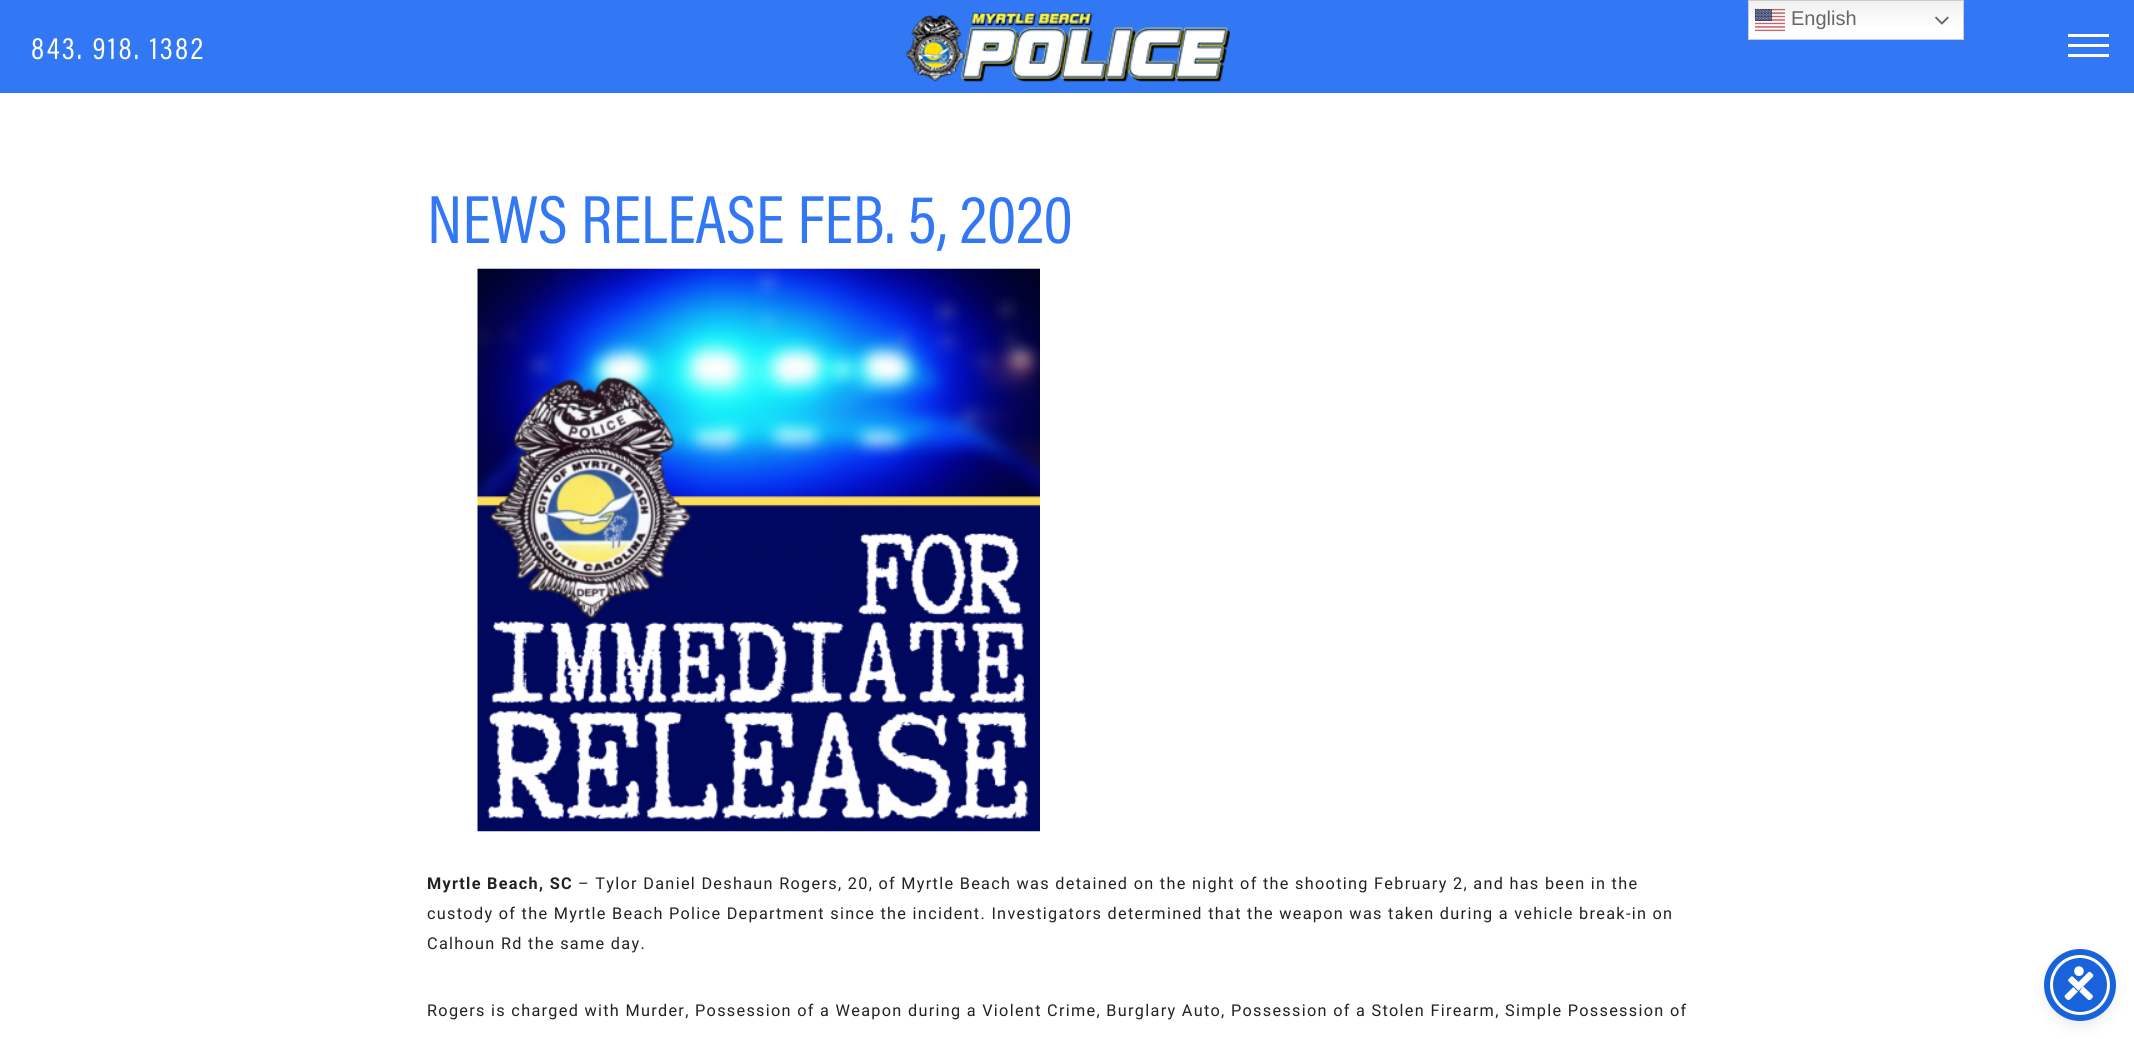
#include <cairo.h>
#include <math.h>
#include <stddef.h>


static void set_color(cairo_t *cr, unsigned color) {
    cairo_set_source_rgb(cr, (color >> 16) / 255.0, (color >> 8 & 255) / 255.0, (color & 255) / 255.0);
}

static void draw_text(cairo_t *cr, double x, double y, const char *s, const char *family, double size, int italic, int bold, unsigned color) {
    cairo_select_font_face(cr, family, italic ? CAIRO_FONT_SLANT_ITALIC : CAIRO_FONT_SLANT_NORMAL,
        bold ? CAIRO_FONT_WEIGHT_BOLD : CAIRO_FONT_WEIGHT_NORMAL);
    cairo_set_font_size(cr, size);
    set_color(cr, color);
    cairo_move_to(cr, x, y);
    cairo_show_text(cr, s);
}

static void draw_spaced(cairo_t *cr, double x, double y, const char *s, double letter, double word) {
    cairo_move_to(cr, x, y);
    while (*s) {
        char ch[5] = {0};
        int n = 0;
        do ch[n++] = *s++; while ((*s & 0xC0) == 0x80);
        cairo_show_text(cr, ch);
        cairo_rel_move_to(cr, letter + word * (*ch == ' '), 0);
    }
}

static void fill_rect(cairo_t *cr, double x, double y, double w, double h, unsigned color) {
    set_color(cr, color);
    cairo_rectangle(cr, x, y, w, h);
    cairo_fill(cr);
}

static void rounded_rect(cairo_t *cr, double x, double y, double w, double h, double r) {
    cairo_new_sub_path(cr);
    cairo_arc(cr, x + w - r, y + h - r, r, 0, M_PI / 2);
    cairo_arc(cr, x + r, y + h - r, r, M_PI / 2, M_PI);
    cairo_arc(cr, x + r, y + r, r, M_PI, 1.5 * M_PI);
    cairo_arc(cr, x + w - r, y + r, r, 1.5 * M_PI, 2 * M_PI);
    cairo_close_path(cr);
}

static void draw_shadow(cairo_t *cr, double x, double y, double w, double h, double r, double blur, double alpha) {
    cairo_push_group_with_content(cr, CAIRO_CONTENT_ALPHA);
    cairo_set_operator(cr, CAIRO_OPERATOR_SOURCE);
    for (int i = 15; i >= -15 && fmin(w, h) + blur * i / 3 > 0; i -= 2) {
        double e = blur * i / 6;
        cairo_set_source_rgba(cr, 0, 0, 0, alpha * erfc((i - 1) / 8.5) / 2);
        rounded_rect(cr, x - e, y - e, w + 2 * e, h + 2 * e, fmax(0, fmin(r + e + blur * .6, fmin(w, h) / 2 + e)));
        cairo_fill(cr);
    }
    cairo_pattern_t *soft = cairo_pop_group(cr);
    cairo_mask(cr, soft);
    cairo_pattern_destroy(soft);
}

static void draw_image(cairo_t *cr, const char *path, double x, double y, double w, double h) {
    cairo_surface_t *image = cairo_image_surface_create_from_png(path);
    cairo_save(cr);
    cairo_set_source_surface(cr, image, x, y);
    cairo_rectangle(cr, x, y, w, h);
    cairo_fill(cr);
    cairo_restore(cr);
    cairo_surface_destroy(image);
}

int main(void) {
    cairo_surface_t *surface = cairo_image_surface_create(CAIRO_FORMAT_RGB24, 2134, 1039);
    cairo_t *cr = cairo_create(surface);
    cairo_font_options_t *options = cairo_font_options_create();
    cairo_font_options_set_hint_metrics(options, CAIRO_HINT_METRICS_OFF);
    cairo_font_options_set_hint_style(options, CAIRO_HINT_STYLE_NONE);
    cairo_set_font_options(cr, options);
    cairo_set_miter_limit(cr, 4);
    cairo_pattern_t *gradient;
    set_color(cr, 0xFFFFFF);
    cairo_paint(cr);
    fill_rect(cr, 0, 0, 2134, 93, 0x3278F4);
    gradient = cairo_pattern_create_linear(1856, 0, 1856, 40);
    cairo_pattern_add_color_stop_rgba(gradient, 0, 0.937, 0.937, 0.937, 1);
    cairo_pattern_add_color_stop_rgba(gradient, 0.7, 1, 1, 1, 1);
    cairo_set_source(cr, gradient);
    cairo_pattern_destroy(gradient);
    cairo_rectangle(cr, 1749, 1, 214, 38);
    cairo_fill(cr);
    cairo_rectangle(cr, 1748.5, 0.5, 215, 39);
    set_color(cr, 0xCCCCCC);
    cairo_set_line_width(cr, 1);
    cairo_stroke(cr);
    draw_image(cr, "assets/img1.png", 1755, 8, 30, 24);
    draw_text(cr, 1791, 25, "English", "Liberation Sans", 20, 0, 0, 0x666666);
    draw_image(cr, "assets/img2.png", 1935, 16, 14, 9);
    cairo_select_font_face(cr, "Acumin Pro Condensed", CAIRO_FONT_SLANT_NORMAL, CAIRO_FONT_WEIGHT_NORMAL);
    cairo_set_font_size(cr, 31.25);
    set_color(cr, 0xFFFFFF);
    draw_spaced(cr, 31, 59, "843. 918. 1382", 2.5, 0);
    draw_image(cr, "assets/img3.png", 906, 12, 324, 70);
    fill_rect(cr, 2068, 44, 41, 3, 0xFFFFFF);
    fill_rect(cr, 2068, 34, 41, 3, 0xFFFFFF);
    fill_rect(cr, 2068, 54, 41, 3, 0xFFFFFF);
    draw_text(cr, 427, 243, "NEWS RELEASE FEB. 5, 2020", "Acumin Pro Condensed", 68.75, 0, 0, 0x3278F4);
    draw_image(cr, "assets/img4.png", 477, 268, 563, 564);
    cairo_select_font_face(cr, "Roboto", CAIRO_FONT_SLANT_NORMAL, CAIRO_FONT_WEIGHT_BOLD);
    cairo_set_font_size(cr, 16.25);
    set_color(cr, 0x222222);
    draw_spaced(cr, 427, 889, "Myrtle Beach, SC", 1.3, 0);
    cairo_select_font_face(cr, "Roboto", CAIRO_FONT_SLANT_NORMAL, CAIRO_FONT_WEIGHT_NORMAL);
    draw_spaced(cr, 578, 889, "– Tylor Daniel Deshaun Rogers, 20, of Myrtle Beach was detained on the night of the shooting February 2, and has been in the", 1.3, 0);
    draw_spaced(cr, 427, 919, "custody of the Myrtle Beach Police Department since the incident. Investigators determined that the weapon was taken during a vehicle break-in on", 1.3, 0);
    draw_spaced(cr, 427, 949, "Calhoun Rd the same day.", 1.3, 0);
    draw_spaced(cr, 427, 1016, "Rogers is charged with Murder, Possession of a Weapon during a Violent Crime, Burglary Auto, Possession of a Stolen Firearm, Simple Possession of", 1.3, 0);
    set_color(cr, 0x5D6494);
    draw_shadow(cr, 2050, 958, 60, 60, 30, 2.5, 0.2);
    set_color(cr, 0x252C61);
    draw_shadow(cr, 2050, 961, 60, 60, 30, 9.5, 0.15);
    set_color(cr, 0x1863DC);
    cairo_arc(cr, 2080, 985, 28.5, 0, 2 * M_PI);
    cairo_fill_preserve(cr);
    set_color(cr, 0xFFFFFF);
    cairo_set_line_width(cr, 3);
    cairo_stroke(cr);
    cairo_arc(cr, 2080, 985, 33, 0, 2 * M_PI);
    set_color(cr, 0x1863DC);
    cairo_set_line_width(cr, 6);
    cairo_stroke(cr);
    draw_image(cr, "assets/img5.png", 2064, 966, 30, 34);
    cairo_surface_write_to_png(surface, "output.png");
    cairo_font_options_destroy(options);
    cairo_destroy(cr);
    cairo_surface_destroy(surface);
    return 0;
}
